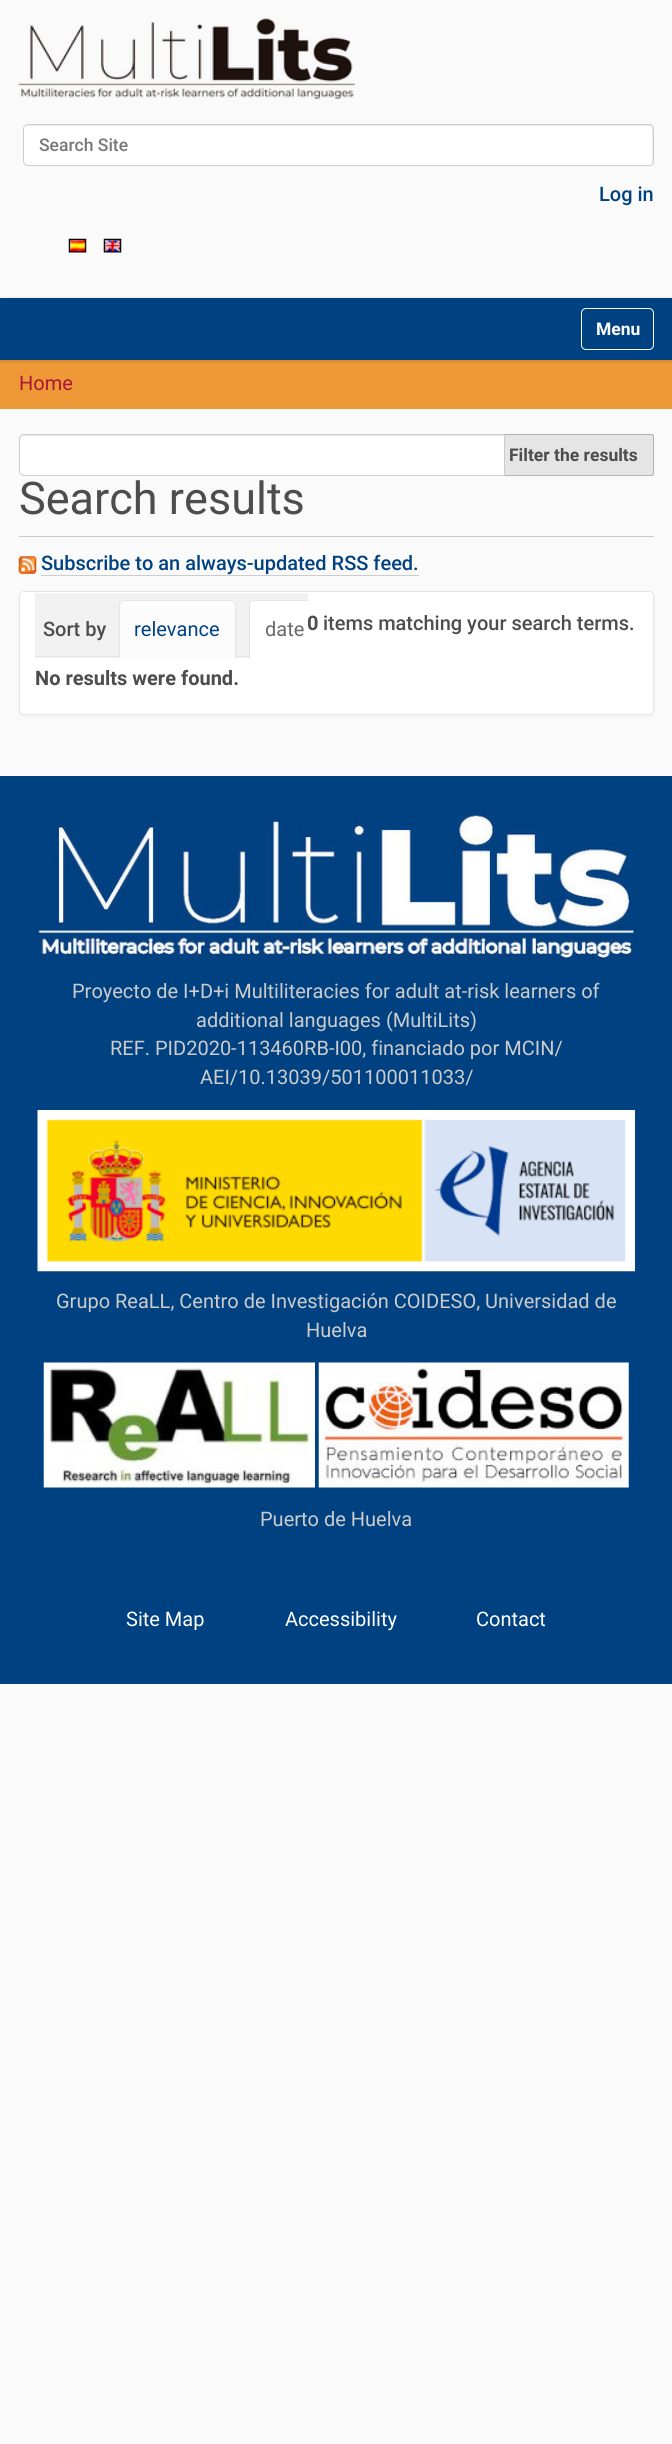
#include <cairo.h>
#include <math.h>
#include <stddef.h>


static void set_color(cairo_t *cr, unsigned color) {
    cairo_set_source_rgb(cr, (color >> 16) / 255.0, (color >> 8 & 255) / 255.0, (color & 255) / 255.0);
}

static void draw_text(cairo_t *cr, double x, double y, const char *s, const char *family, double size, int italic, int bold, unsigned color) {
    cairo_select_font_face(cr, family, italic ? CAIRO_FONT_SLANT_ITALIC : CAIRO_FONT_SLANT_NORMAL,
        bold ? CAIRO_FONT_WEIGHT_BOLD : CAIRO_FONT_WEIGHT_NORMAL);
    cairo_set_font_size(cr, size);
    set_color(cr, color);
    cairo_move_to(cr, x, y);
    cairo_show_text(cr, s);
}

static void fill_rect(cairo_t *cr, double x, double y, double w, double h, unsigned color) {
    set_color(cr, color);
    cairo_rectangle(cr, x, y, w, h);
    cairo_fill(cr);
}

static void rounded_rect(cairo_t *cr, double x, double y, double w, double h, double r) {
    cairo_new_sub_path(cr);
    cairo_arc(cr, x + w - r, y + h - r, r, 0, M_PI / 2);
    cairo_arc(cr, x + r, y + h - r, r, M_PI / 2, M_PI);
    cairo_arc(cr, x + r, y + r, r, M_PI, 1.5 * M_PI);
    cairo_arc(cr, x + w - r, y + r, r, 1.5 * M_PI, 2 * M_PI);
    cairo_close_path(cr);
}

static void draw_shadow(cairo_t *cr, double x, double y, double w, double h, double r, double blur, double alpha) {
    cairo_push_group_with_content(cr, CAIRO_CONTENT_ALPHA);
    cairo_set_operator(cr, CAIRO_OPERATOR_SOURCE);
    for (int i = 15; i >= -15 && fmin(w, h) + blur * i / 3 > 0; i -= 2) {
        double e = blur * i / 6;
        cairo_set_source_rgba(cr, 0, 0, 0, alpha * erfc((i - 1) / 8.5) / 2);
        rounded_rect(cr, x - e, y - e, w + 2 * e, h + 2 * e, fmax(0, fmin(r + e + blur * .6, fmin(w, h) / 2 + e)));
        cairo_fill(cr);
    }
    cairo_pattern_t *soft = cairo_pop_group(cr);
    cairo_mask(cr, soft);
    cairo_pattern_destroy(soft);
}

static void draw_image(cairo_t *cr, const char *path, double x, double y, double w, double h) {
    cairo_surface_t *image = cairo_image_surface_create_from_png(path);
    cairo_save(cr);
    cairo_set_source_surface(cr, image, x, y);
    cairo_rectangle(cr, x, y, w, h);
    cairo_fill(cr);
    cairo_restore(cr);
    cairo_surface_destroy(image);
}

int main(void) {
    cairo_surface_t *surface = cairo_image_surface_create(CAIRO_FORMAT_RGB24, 672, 2444);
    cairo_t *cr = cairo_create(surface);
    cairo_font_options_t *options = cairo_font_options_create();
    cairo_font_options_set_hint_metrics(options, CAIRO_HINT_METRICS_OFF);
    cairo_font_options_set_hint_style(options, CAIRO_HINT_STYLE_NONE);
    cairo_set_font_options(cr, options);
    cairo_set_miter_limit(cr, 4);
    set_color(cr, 0xFAFAFA);
    cairo_paint(cr);
    draw_image(cr, "assets/img1.png", 18, 18, 337, 81);
    set_color(cr, 0xFFFFFF);
    rounded_rect(cr, 23, 124, 631, 42, 5);
    cairo_fill(cr);
    set_color(cr, 0xECECEC);
    cairo_new_path(cr);
    cairo_move_to(cr, 28, 126);
    cairo_line_to(cr, 649, 126);
    cairo_curve_to(cr, 651, 126, 652, 128, 652, 130);
    cairo_line_to(cr, 652, 164);
    cairo_curve_to(cr, 653, 163, 653, 162, 653, 161);
    cairo_line_to(cr, 653, 129);
    cairo_curve_to(cr, 653, 127, 651, 125, 649, 125);
    cairo_line_to(cr, 28, 125);
    cairo_curve_to(cr, 26, 125, 24, 127, 24, 129);
    cairo_line_to(cr, 24, 130);
    cairo_curve_to(cr, 24, 128, 25, 126, 28, 126);
    cairo_close_path(cr);
    cairo_fill(cr);
    rounded_rect(cr, 23.5, 124.5, 630, 41, 4.5);
    set_color(cr, 0xCCCCCC);
    cairo_set_line_width(cr, 1);
    cairo_stroke(cr);
    draw_text(cr, 39, 151, "Search Site", "Roboto Medium", 17.5, 0, 0, 0x777777);
    draw_text(cr, 599, 201, "Log in", "Roboto Medium", 20, 0, 0, 0x004181);
    draw_image(cr, "assets/img2.png", 68, 238, 19, 15);
    draw_image(cr, "assets/img3.png", 103, 238, 19, 15);
    fill_rect(cr, 0, 360, 672, 49, 0xEE9837);
    set_color(cr, 0x000000);
    draw_shadow(cr, 0, 299, 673, 62, 0, 2, 0.17);
    fill_rect(cr, 0, 298, 672, 62, 0x004181);
    rounded_rect(cr, 581.5, 308.5, 72, 41, 4.5);
    set_color(cr, 0xFFFFFF);
    cairo_stroke(cr);
    draw_text(cr, 596, 335, "Menu", "Roboto", 17.5, 0, 1, 0xFFFFFF);
    draw_text(cr, 19, 390, "Home", "Roboto", 20, 0, 0, 0xA71736);
    cairo_new_path(cr);
    cairo_move_to(cr, 504.5, 434.5);
    cairo_line_to(cr, 651.5, 434.5);
    cairo_curve_to(cr, 652.5, 434.5, 653.5, 435.5, 653.5, 436.5);
    cairo_line_to(cr, 653.5, 473.5);
    cairo_curve_to(cr, 653.5, 474.5, 652.5, 475.5, 651.5, 475.5);
    cairo_line_to(cr, 504.5, 475.5);
    cairo_close_path(cr);
    set_color(cr, 0xB2B2B2);
    cairo_stroke(cr);
    set_color(cr, 0xE5E5E5);
    rounded_rect(cr, 493.5, 434.5, 160, 41, 2);
    cairo_fill_preserve(cr);
    set_color(cr, 0xB2B2B2);
    cairo_stroke(cr);
    set_color(cr, 0xFFFFFF);
    cairo_new_path(cr);
    cairo_move_to(cr, 24, 434);
    cairo_line_to(cr, 505, 434);
    cairo_line_to(cr, 505, 476);
    cairo_line_to(cr, 24, 476);
    cairo_curve_to(cr, 21, 476, 19, 474, 19, 471);
    cairo_line_to(cr, 19, 439);
    cairo_curve_to(cr, 19, 436, 21, 434, 24, 434);
    cairo_close_path(cr);
    cairo_fill(cr);
    set_color(cr, 0xECECEC);
    cairo_new_path(cr);
    cairo_move_to(cr, 24, 436);
    cairo_line_to(cr, 504, 436);
    cairo_line_to(cr, 504, 435);
    cairo_line_to(cr, 24, 435);
    cairo_curve_to(cr, 21, 435, 20, 437, 20, 440);
    cairo_curve_to(cr, 20, 438, 22, 436, 24, 436);
    cairo_close_path(cr);
    cairo_fill(cr);
    cairo_new_path(cr);
    cairo_move_to(cr, 24, 434.5);
    cairo_line_to(cr, 504.5, 434.5);
    cairo_line_to(cr, 504.5, 475.5);
    cairo_line_to(cr, 24, 475.5);
    cairo_curve_to(cr, 21.5, 475.5, 19.5, 473.5, 19.5, 471);
    cairo_line_to(cr, 19.5, 439);
    cairo_curve_to(cr, 19.5, 436.5, 21.5, 434.5, 24, 434.5);
    cairo_close_path(cr);
    set_color(cr, 0xCCCCCC);
    cairo_stroke(cr);
    draw_text(cr, 509, 461, "Filter the results", "Roboto", 17.5, 0, 1, 0x4D4D4D);
    fill_rect(cr, 19, 536, 635, 1, 0xCCCCCC);
    draw_text(cr, 19, 514, "Search results", "Roboto", 45, 0, 0, 0x4D4D4D);
    draw_image(cr, "assets/img4.png", 18, 556, 19, 18);
    draw_text(cr, 41, 570, "Subscribe to an always-updated RSS feed.", "Roboto Medium", 20, 0, 0, 0x004181);
    fill_rect(cr, 41, 575, 378, 1, 0xCCCCCC);
    set_color(cr, 0x000000);
    draw_shadow(cr, 19, 593, 635, 123, 5, 2, 0.05);
    set_color(cr, 0xFFFFFF);
    rounded_rect(cr, 19.5, 591.5, 634, 123, 4.5);
    cairo_fill_preserve(cr);
    set_color(cr, 0xE5E5E5);
    cairo_stroke(cr);
    draw_text(cr, 307, 630, "0", "Roboto", 20, 0, 1, 0x4D4D4D);
    fill_rect(cr, 35, 593, 273, 65, 0xF2F1F1);
    fill_rect(cr, 35, 656, 214, 1, 0xE5E5E5);
    draw_text(cr, 43, 636, "Sort by", "Roboto Medium", 20, 0, 0, 0x4D4D4D);
    set_color(cr, 0xFCFCFD);
    cairo_new_path(cr);
    cairo_move_to(cr, 124, 600);
    cairo_line_to(cr, 231, 600);
    cairo_curve_to(cr, 234, 600, 236, 602, 236, 605);
    cairo_line_to(cr, 236, 658);
    cairo_line_to(cr, 119, 658);
    cairo_line_to(cr, 119, 605);
    cairo_curve_to(cr, 119, 602, 121, 600, 124, 600);
    cairo_close_path(cr);
    cairo_fill(cr);
    set_color(cr, 0xE5E5E5);
    cairo_new_path(cr);
    cairo_move_to(cr, 124, 600);
    cairo_curve_to(cr, 122, 600, 121, 601, 120, 602);
    cairo_line_to(cr, 121, 602);
    cairo_line_to(cr, 124, 601);
    cairo_line_to(cr, 231, 601);
    cairo_line_to(cr, 234, 602);
    cairo_line_to(cr, 235, 602);
    cairo_curve_to(cr, 234, 601, 233, 600, 231, 600);
    cairo_close_path(cr);
    cairo_fill(cr);
    cairo_save(cr);
    cairo_rectangle(cr, 35, 593, 273, 65);
    cairo_clip(cr);
    cairo_new_path(cr);
    cairo_move_to(cr, 235, 602);
    cairo_curve_to(cr, 236, 602, 236, 604, 236, 605);
    cairo_line_to(cr, 236, 661);
    cairo_line_to(cr, 235, 660);
    cairo_line_to(cr, 235, 605);
    cairo_line_to(cr, 234, 602);
    cairo_close_path(cr);
    cairo_fill(cr);
    cairo_new_path(cr);
    cairo_move_to(cr, 120, 602);
    cairo_curve_to(cr, 119, 602, 119, 604, 119, 605);
    cairo_line_to(cr, 119, 661);
    cairo_line_to(cr, 120, 660);
    cairo_line_to(cr, 120, 605);
    cairo_line_to(cr, 121, 602);
    cairo_close_path(cr);
    cairo_fill(cr);
    cairo_restore(cr);
    draw_text(cr, 134, 636, "relevance", "Roboto", 20, 0, 0, 0x004181);
    set_color(cr, 0xFFFFFF);
    cairo_new_path(cr);
    cairo_move_to(cr, 254, 600);
    cairo_line_to(cr, 308, 600);
    cairo_line_to(cr, 308, 658);
    cairo_line_to(cr, 249, 658);
    cairo_line_to(cr, 249, 605);
    cairo_curve_to(cr, 249, 602, 251, 600, 254, 600);
    cairo_close_path(cr);
    cairo_fill(cr);
    cairo_save(cr);
    cairo_rectangle(cr, 35, 593, 273, 65);
    cairo_clip(cr);
    set_color(cr, 0xE5E5E5);
    cairo_new_path(cr);
    cairo_move_to(cr, 254, 600);
    cairo_curve_to(cr, 252, 600, 251, 601, 250, 602);
    cairo_line_to(cr, 251, 602);
    cairo_line_to(cr, 254, 601);
    cairo_line_to(cr, 439, 601);
    cairo_curve_to(cr, 440, 601, 441, 602, 441, 602);
    cairo_line_to(cr, 442, 601);
    cairo_curve_to(cr, 442, 600, 440, 600, 439, 600);
    cairo_close_path(cr);
    cairo_move_to(cr, 250, 602);
    cairo_curve_to(cr, 249, 602, 249, 604, 249, 605);
    cairo_line_to(cr, 249, 661);
    cairo_line_to(cr, 250, 660);
    cairo_line_to(cr, 250, 605);
    cairo_line_to(cr, 251, 602);
    cairo_close_path(cr);
    cairo_fill(cr);
    cairo_restore(cr);
    draw_text(cr, 265, 636, "date", "Roboto", 20, 0, 0, 0x696969);
    draw_text(cr, 35, 685, "No results were found.", "Roboto", 20, 0, 1, 0x4D4D4D);
    draw_text(cr, 323, 630, "items matching your search terms.", "Roboto Medium", 20, 0, 0, 0x4D4D4D);
    fill_rect(cr, 0, 776, 672, 908, 0x004181);
    draw_image(cr, "assets/img5.png", 37, 813, 598, 147);
    draw_text(cr, 72, 998, "Proyecto de I+D+i Multiliteracies for adult at-risk learners of", "Roboto", 20, 0, 0, 0xCCCCCC);
    draw_text(cr, 196, 1027, "additional languages (MultiLits)", "Roboto", 20, 0, 0, 0xCCCCCC);
    draw_text(cr, 110, 1055, "REF. PID2020-113460RB-I00, financiado por MCIN/", "Roboto", 20, 0, 0, 0xCCCCCC);
    draw_text(cr, 200, 1084, "AEI/10.13039/501100011033/", "Roboto", 20, 0, 0, 0xCCCCCC);
    draw_image(cr, "assets/img6.png", 37, 1110, 598, 162);
    draw_text(cr, 56, 1308, "Grupo ReaLL, Centro de Investigación COIDESO, Universidad de", "Roboto", 20, 0, 0, 0xCCCCCC);
    draw_text(cr, 306, 1337, "Huelva", "Roboto", 20, 0, 0, 0xCCCCCC);
    draw_image(cr, "assets/img7.png", 43, 1362, 272, 126);
    draw_image(cr, "assets/img8.png", 318, 1362, 311, 126);
    draw_text(cr, 260, 1526, "Puerto de Huelva", "Roboto", 20, 0, 0, 0xCCCCCC);
    draw_text(cr, 126, 1626, "Site Map", "Roboto", 20, 0, 0, 0xFFFFFF);
    draw_text(cr, 285, 1626, "Accessibility", "Roboto", 20, 0, 0, 0xFFFFFF);
    draw_text(cr, 476, 1626, "Contact", "Roboto", 20, 0, 0, 0xFFFFFF);
    cairo_surface_write_to_png(surface, "output.png");
    cairo_font_options_destroy(options);
    cairo_destroy(cr);
    cairo_surface_destroy(surface);
    return 0;
}
